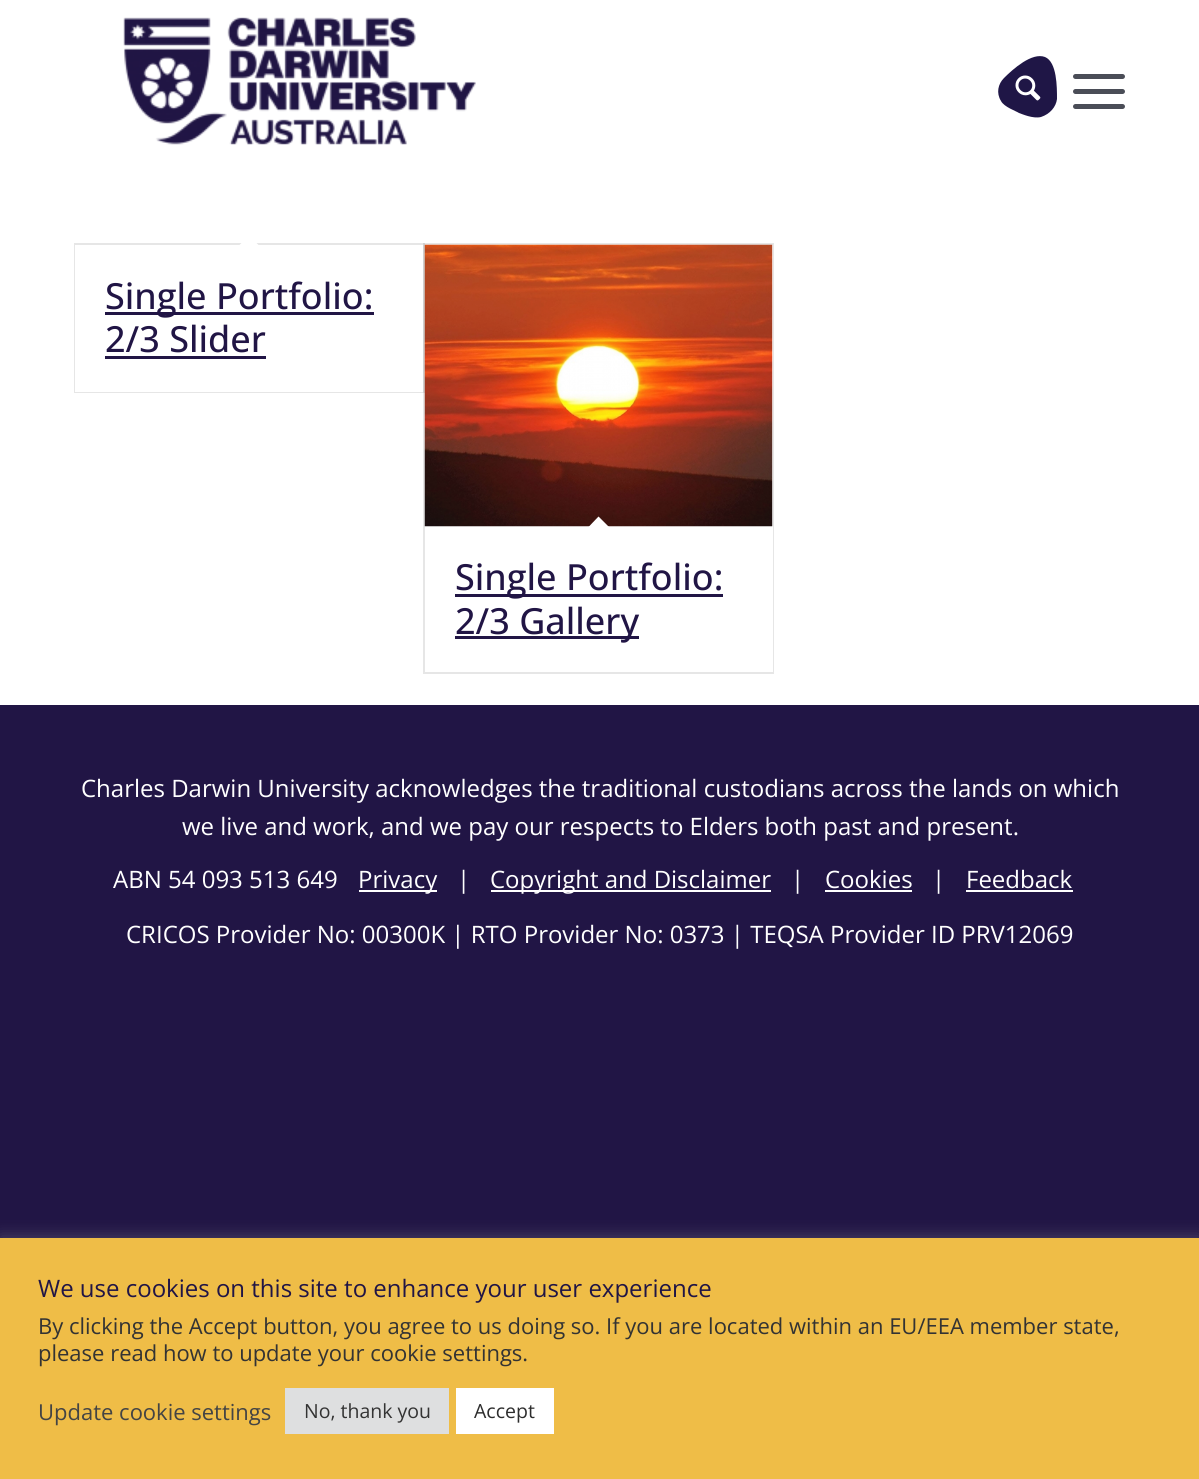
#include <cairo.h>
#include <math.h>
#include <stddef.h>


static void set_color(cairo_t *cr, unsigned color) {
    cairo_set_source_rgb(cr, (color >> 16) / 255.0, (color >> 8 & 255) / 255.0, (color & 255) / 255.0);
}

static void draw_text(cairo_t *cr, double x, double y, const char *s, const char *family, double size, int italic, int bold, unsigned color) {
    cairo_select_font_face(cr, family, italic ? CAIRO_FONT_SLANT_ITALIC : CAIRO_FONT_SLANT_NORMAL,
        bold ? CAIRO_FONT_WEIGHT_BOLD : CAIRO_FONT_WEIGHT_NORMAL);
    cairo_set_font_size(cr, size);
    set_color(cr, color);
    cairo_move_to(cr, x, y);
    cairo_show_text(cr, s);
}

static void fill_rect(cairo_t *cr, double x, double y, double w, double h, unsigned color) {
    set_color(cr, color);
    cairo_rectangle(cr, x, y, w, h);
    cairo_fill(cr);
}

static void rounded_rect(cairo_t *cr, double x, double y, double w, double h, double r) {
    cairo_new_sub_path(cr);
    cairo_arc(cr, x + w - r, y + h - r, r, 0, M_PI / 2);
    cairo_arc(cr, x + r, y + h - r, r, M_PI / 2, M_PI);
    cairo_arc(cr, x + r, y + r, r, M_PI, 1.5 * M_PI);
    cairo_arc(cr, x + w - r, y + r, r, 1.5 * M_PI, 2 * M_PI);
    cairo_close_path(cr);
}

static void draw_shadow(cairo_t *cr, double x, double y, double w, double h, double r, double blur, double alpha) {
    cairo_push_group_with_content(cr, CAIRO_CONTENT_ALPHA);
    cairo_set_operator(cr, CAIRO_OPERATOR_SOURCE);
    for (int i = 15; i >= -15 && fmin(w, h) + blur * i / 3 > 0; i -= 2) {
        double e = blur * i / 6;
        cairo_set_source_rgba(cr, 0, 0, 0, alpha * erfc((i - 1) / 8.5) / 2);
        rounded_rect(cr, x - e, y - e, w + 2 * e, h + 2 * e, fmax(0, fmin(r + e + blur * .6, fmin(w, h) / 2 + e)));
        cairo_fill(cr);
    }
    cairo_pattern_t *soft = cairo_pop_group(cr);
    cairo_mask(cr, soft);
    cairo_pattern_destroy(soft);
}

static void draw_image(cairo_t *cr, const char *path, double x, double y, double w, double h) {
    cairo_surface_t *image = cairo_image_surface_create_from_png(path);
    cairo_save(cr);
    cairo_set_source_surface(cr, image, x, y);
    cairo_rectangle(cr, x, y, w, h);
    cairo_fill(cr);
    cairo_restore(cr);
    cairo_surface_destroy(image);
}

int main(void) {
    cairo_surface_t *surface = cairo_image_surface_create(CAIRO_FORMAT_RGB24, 1199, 1479);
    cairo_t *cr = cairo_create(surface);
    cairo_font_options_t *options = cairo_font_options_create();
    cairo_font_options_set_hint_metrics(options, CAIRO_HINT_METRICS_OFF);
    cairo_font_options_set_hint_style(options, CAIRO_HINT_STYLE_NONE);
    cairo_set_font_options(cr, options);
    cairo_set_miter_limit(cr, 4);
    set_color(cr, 0x211545);
    cairo_paint(cr);
    fill_rect(cr, 0, 0, 1199, 705, 0xFFFFFF);
    draw_image(cr, "assets/img1.png", 123, 17, 353, 128);
    set_color(cr, 0x1F1646);
    cairo_new_path(cr);
    cairo_move_to(cr, 1041, 117);
    cairo_curve_to(cr, 1050, 114, 1056, 107, 1057, 99);
    cairo_curve_to(cr, 1057, 87, 1057, 62, 1045, 57);
    cairo_curve_to(cr, 1032, 52, 1013, 69, 1004, 78);
    cairo_curve_to(cr, 998, 84, 996, 93, 1001, 101);
    cairo_curve_to(cr, 1004, 107, 1016, 111, 1019, 113);
    cairo_curve_to(cr, 1022, 114, 1033, 119, 1041, 117);
    cairo_fill(cr);
    draw_image(cr, "assets/img2.png", 1015, 75, 26, 26);
    set_color(cr, 0x4A4D57);
    rounded_rect(cr, 1073, 89, 52, 5, 2.5);
    cairo_fill(cr);
    rounded_rect(cr, 1073, 74, 52, 5, 2.5);
    cairo_fill(cr);
    rounded_rect(cr, 1073, 104, 52, 5, 2.5);
    cairo_fill(cr);
    cairo_rectangle(cr, 75, 244, 349, 148);
    set_color(cr, 0xE6E6E6);
    cairo_stroke(cr);
    fill_rect(cr, 75, 245, 348, 147, 0xFFFFFF);
    cairo_new_path(cr);
    cairo_move_to(cr, 249, 235.5);
    cairo_line_to(cr, 259.5, 246);
    cairo_line_to(cr, 249, 256.5);
    cairo_line_to(cr, 238.5, 246);
    cairo_close_path(cr);
    cairo_fill(cr);
    fill_rect(cr, 105, 312, 269, 3, 0x211545);
    draw_text(cr, 105, 309, "Single Portfolio:", "Open Sans Medium", 36, 0, 0, 0x211545);
    draw_text(cr, 105, 352, "2/3 Slider", "Open Sans Medium", 36, 0, 0, 0x211545);
    fill_rect(cr, 105, 356, 161, 3, 0x211545);
    cairo_rectangle(cr, 424, 244, 349, 429);
    cairo_set_source_rgba(cr, 0, 0, 0, 0.1);
    cairo_stroke(cr);
    fill_rect(cr, 772, 245, 1, 427, 0xFFFFFF);
    draw_image(cr, "assets/img3.png", 424, 244, 349, 283);
    cairo_new_path(cr);
    cairo_move_to(cr, 598.5, 516.5);
    cairo_line_to(cr, 609.5, 527.5);
    cairo_line_to(cr, 598.5, 538);
    cairo_line_to(cr, 588, 527.5);
    cairo_close_path(cr);
    cairo_fill(cr);
    fill_rect(cr, 455, 594, 268, 3, 0x211545);
    draw_text(cr, 455, 590, "Single Portfolio:", "Open Sans Medium", 36, 0, 0, 0x211545);
    fill_rect(cr, 455, 636, 184, 3, 0x211545);
    draw_text(cr, 455, 634, "2/3 Gallery", "Open Sans Medium", 36, 0, 0, 0x211545);
    draw_text(cr, 81, 797, "Charles Darwin University acknowledges the traditional custodians across the lands on which", "Open Sans", 24, 0, 0, 0xFFFFFF);
    draw_text(cr, 182, 835, "we live and work, and we pay our respects to Elders both past and present.", "Open Sans", 24, 0, 0, 0xFFFFFF);
    draw_text(cr, 113, 888, "ABN 54 093 513 649", "Open Sans", 24, 0, 0, 0xFFFFFF);
    fill_rect(cr, 359, 890, 78, 2, 0xFFFFFF);
    draw_text(cr, 358, 888, "Privacy", "Open Sans", 24, 0, 0, 0xFFFFFF);
    draw_text(cr, 457, 888, "|", "Open Sans", 24, 0, 0, 0xFFFFFF);
    fill_rect(cr, 491, 890, 280, 2, 0xFFFFFF);
    draw_text(cr, 490, 888, "Copyright and Disclaimer", "Open Sans", 24, 0, 0, 0xFFFFFF);
    draw_text(cr, 791, 888, "|", "Open Sans", 24, 0, 0, 0xFFFFFF);
    draw_text(cr, 825, 888, "Cookies", "Open Sans", 24, 0, 0, 0xFFFFFF);
    fill_rect(cr, 825, 890, 87, 2, 0xFFFFFF);
    draw_text(cr, 932, 888, "|", "Open Sans", 24, 0, 0, 0xFFFFFF);
    draw_text(cr, 966, 888, "Feedback", "Open Sans", 24, 0, 0, 0xFFFFFF);
    fill_rect(cr, 966, 890, 107, 2, 0xFFFFFF);
    draw_text(cr, 126, 943, "CRICOS Provider No: 00300K | RTO Provider No: 0373 | TEQSA Provider ID PRV12069", "Open Sans", 24, 0, 0, 0xFFFFFF);
    set_color(cr, 0xACABAB);
    draw_shadow(cr, 0, 1236, 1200, 242, 0, 7.5, 0.3);
    fill_rect(cr, 0, 1238, 1199, 241, 0xEFBD47);
    draw_text(cr, 38, 1297, "We use cookies on this site to enhance your user experience", "Open Sans", 24, 0, 0, 0x211545);
    draw_text(cr, 38, 1334, "By clicking the Accept button, you agree to us doing so. If you are located within an EU/EEA member state,", "Open Sans", 22, 0, 0, 0x333333);
    draw_text(cr, 38, 1361, "please read how to update your cookie settings.", "Open Sans", 22, 0, 0, 0x333333);
    draw_text(cr, 38, 1420, "Update cookie settings", "Open Sans", 22, 0, 0, 0x444444);
    fill_rect(cr, 285, 1388, 164, 46, 0xDEDFE0);
    draw_text(cr, 304, 1418, "No, thank you", "Open Sans", 19.5, 0, 0, 0x333333);
    fill_rect(cr, 456, 1388, 98, 46, 0xFFFFFF);
    draw_text(cr, 474, 1418, "Accept", "Open Sans", 19.5, 0, 0, 0x2D2D2D);
    cairo_surface_write_to_png(surface, "output.png");
    cairo_font_options_destroy(options);
    cairo_destroy(cr);
    cairo_surface_destroy(surface);
    return 0;
}
